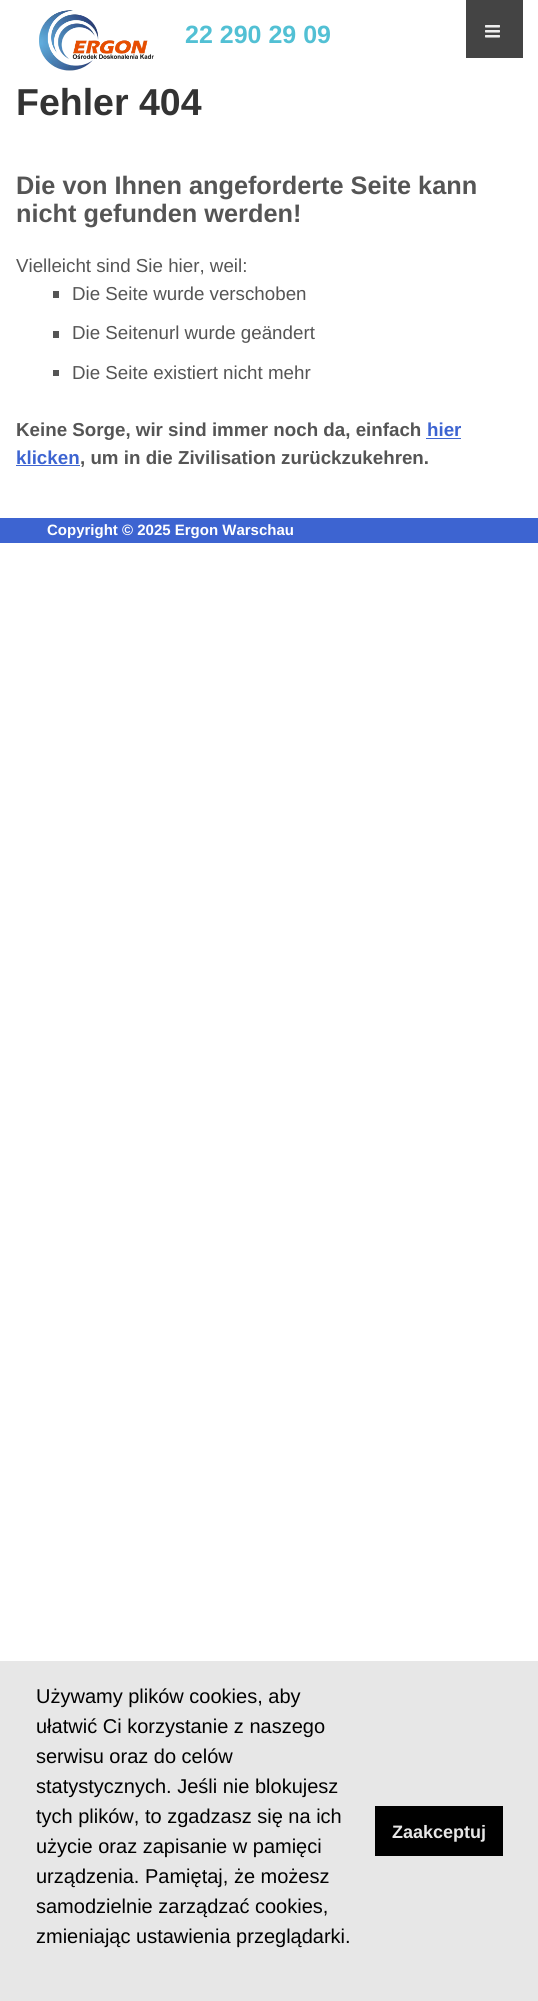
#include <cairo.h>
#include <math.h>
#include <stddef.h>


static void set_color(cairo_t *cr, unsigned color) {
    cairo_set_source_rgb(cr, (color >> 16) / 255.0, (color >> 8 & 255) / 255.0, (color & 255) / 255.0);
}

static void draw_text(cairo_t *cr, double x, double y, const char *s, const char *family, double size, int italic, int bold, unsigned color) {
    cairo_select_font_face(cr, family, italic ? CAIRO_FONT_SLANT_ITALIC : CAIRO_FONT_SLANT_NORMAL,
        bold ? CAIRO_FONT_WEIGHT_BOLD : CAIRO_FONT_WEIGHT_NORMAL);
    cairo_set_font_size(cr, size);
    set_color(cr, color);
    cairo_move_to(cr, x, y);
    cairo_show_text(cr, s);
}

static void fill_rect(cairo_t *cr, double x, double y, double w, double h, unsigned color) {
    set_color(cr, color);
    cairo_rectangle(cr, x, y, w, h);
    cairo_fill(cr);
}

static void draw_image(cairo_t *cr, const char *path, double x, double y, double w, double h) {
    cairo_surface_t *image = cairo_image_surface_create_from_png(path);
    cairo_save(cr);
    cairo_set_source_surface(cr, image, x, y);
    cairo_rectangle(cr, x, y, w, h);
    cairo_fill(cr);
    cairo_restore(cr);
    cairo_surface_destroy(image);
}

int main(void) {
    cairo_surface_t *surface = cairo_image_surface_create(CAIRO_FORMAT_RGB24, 538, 2001);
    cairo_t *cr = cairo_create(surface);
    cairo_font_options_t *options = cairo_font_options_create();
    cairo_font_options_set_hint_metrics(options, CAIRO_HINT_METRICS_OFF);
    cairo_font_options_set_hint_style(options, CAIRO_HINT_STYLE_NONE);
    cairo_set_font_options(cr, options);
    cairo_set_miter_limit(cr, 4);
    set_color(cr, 0xFFFFFF);
    cairo_paint(cr);
    draw_image(cr, "assets/img1.png", 39, 10, 115, 61);
    draw_text(cr, 185, 43, "22 290 29 09", "Liberation Sans", 25, 0, 1, 0x52C0D4);
    fill_rect(cr, 466, 0, 57, 58, 0x444444);
    draw_image(cr, "assets/img2.png", 485, 25, 15, 13);
    draw_text(cr, 16, 115, "Fehler 404", "Liberation Sans", 37.5, 0, 1, 0x333333);
    draw_text(cr, 16, 194, "Die von Ihnen angeforderte Seite kann", "Liberation Sans", 25.3, 0, 1, 0x555555);
    draw_text(cr, 16, 222, "nicht gefunden werden!", "Liberation Sans", 25.3, 0, 1, 0x555555);
    draw_text(cr, 16, 272, "Vielleicht sind Sie hier, weil:", "Liberation Sans", 18.75, 0, 0, 0x555555);
    fill_rect(cr, 53, 291, 6, 7, 0x555555);
    draw_text(cr, 72, 300, "Die Seite wurde verschoben", "Liberation Sans", 18.75, 0, 0, 0x555555);
    fill_rect(cr, 53, 331, 6, 7, 0x555555);
    draw_text(cr, 72, 339, "Die Seitenurl wurde geändert", "Liberation Sans", 18.75, 0, 0, 0x555555);
    fill_rect(cr, 53, 370, 6, 6, 0x555555);
    draw_text(cr, 72, 379, "Die Seite existiert nicht mehr", "Liberation Sans", 18.75, 0, 0, 0x555555);
    draw_text(cr, 16, 436, "Keine Sorge, wir sind immer noch da, einfach", "Liberation Sans", 18.75, 0, 1, 0x555555);
    draw_text(cr, 427, 436, "hier", "Liberation Sans", 18.75, 0, 1, 0x3D64D1);
    fill_rect(cr, 426, 438, 35, 1, 0x3D64D1);
    draw_text(cr, 16, 464, "klicken", "Liberation Sans", 18.75, 0, 1, 0x3D64D1);
    draw_text(cr, 80, 464, ", um in die Zivilisation zurückzukehren.", "Liberation Sans", 18.75, 0, 1, 0x555555);
    fill_rect(cr, 16, 465, 64, 1, 0x3D64D1);
    fill_rect(cr, 0, 518, 538, 25, 0x3D64D1);
    draw_text(cr, 47, 535, "Copyright © 2025 Ergon Warschau", "Liberation Sans", 15, 0, 1, 0xFFFFFF);
    fill_rect(cr, 0, 1661, 538, 340, 0xE7E7E7);
    draw_text(cr, 36, 1703, "Używamy plików cookies, aby", "Liberation Sans", 20, 0, 0, 0x000000);
    draw_text(cr, 36, 1733, "ułatwić Ci korzystanie z naszego", "Liberation Sans", 20, 0, 0, 0x000000);
    draw_text(cr, 36, 1763, "serwisu oraz do celów", "Liberation Sans", 20, 0, 0, 0x000000);
    draw_text(cr, 36, 1793, "statystycznych. Jeśli nie blokujesz", "Liberation Sans", 20, 0, 0, 0x000000);
    draw_text(cr, 36, 1823, "tych plików, to zgadzasz się na ich", "Liberation Sans", 20, 0, 0, 0x000000);
    draw_text(cr, 36, 1853, "użycie oraz zapisanie w pamięci", "Liberation Sans", 20, 0, 0, 0x000000);
    draw_text(cr, 36, 1883, "urządzenia. Pamiętaj, że możesz", "Liberation Sans", 20, 0, 0, 0x000000);
    draw_text(cr, 36, 1913, "samodzielnie zarządzać cookies,", "Liberation Sans", 20, 0, 0, 0x000000);
    draw_text(cr, 36, 1943, "zmieniając ustawienia przeglądarki.", "Liberation Sans", 20, 0, 0, 0x000000);
    fill_rect(cr, 375, 1806, 128, 50, 0x000000);
    draw_text(cr, 392, 1838, "Zaakceptuj", "Liberation Sans", 18, 0, 1, 0xE7E7E7);
    cairo_surface_write_to_png(surface, "output.png");
    cairo_font_options_destroy(options);
    cairo_destroy(cr);
    cairo_surface_destroy(surface);
    return 0;
}
